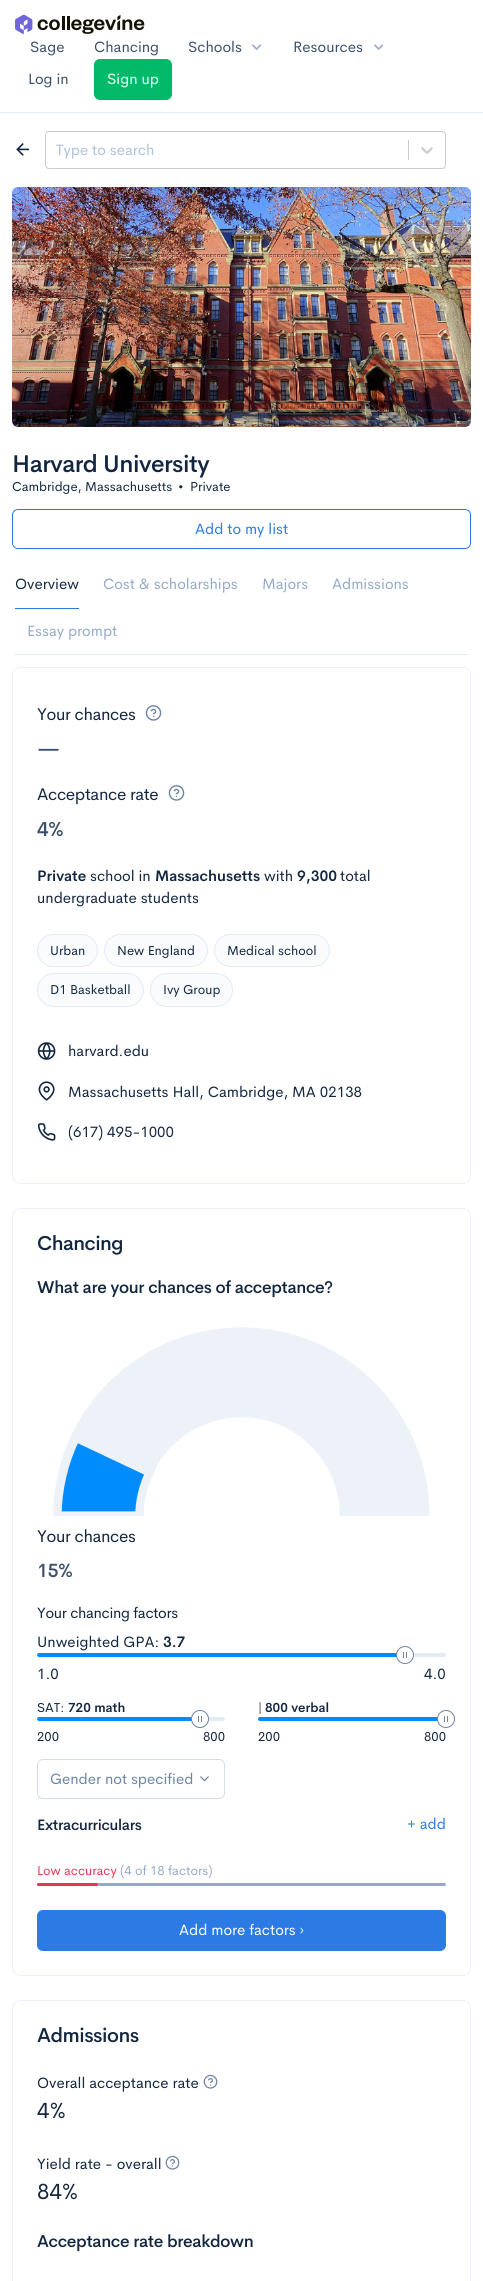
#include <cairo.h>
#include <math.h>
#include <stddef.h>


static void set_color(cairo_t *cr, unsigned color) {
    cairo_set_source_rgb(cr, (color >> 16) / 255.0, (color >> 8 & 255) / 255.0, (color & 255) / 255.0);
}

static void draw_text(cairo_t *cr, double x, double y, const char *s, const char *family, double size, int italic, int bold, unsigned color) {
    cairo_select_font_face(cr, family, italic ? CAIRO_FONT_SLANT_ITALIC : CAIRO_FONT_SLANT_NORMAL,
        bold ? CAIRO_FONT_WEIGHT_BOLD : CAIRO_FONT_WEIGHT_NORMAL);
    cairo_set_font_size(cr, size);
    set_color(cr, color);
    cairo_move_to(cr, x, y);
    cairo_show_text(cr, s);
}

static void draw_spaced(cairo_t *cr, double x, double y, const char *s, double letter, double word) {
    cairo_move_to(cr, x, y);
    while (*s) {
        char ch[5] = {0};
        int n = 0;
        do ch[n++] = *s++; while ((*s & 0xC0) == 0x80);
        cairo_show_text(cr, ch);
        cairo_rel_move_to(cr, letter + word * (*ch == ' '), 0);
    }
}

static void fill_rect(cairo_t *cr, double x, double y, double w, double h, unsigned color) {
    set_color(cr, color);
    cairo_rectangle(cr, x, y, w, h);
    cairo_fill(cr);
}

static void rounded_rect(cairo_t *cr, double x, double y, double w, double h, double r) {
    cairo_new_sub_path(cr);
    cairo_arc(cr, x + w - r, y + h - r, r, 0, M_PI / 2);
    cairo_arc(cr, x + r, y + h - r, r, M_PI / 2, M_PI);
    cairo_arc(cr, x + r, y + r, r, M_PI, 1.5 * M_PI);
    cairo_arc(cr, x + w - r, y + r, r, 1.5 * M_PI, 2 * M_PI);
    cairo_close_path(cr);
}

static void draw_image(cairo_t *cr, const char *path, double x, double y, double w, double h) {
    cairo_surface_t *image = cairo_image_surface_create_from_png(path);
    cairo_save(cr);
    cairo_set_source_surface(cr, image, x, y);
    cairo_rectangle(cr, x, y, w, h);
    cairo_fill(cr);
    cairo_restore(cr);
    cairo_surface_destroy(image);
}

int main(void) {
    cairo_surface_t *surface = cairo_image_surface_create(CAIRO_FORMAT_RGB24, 483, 2281);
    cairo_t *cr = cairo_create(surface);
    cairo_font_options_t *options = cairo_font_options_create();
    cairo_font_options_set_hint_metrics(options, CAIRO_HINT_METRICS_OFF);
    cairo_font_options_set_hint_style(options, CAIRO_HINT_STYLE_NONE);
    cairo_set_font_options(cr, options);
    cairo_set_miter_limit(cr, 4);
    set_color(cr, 0xFFFFFF);
    cairo_paint(cr);
    fill_rect(cr, 0, 112, 483, 1, 0xE3EBF6);
    draw_image(cr, "assets/img1.png", 15, 14, 130, 21);
    draw_text(cr, 30, 52, "Sage", "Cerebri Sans", 15, 0, 0, 0x3B506C);
    draw_text(cr, 94, 52, "Chancing", "Cerebri Sans", 15, 0, 0, 0x3B506C);
    draw_text(cr, 188, 52, "Schools", "Cerebri Sans", 15, 0, 0, 0x3B506C);
    draw_image(cr, "assets/img2.png", 251, 44, 11, 6);
    draw_text(cr, 293, 52, "Resources", "Cerebri Sans", 15, 0, 0, 0x3B506C);
    draw_image(cr, "assets/img2.png", 373, 44, 11, 6);
    draw_text(cr, 28, 84, "Log in", "Cerebri Sans", 15, 0, 0, 0x3B506C);
    set_color(cr, 0x00BA69);
    rounded_rect(cr, 94.5, 59.5, 77, 40, 5.5);
    cairo_fill_preserve(cr);
    cairo_set_line_width(cr, 1);
    cairo_stroke(cr);
    draw_text(cr, 107, 84, "Sign up", "Cerebri Sans", 15, 0, 0, 0xFFFFFF);
    draw_image(cr, "assets/img3.png", 16, 143, 13, 13);
    rounded_rect(cr, 45.5, 131.5, 400, 37, 3.5);
    set_color(cr, 0xCCCCCC);
    cairo_stroke(cr);
    draw_text(cr, 56, 155, "Type to search", "Cerebri Sans", 15, 0, 0, 0xB1C2D9);
    fill_rect(cr, 408, 140, 1, 20, 0xCCCCCC);
    draw_image(cr, "assets/img4.png", 421, 147, 12, 7);
    draw_image(cr, "assets/img5.png", 12, 187, 459, 240);
    cairo_select_font_face(cr, "Cerebri Sans Medium", CAIRO_FONT_SLANT_NORMAL, CAIRO_FONT_WEIGHT_NORMAL);
    cairo_set_font_size(cr, 24);
    set_color(cr, 0x12263F);
    draw_spaced(cr, 12, 472, "Harvard University", -0.5, 0);
    draw_text(cr, 12, 491, "Cambridge, Massachusetts", "Cerebri Sans", 13, 0, 0, 0x12263F);
    draw_text(cr, 178, 491, "•", "Cerebri Sans", 13, 0, 0, 0x12263F);
    draw_text(cr, 190, 491, "Private", "Cerebri Sans", 13, 0, 0, 0x12263F);
    rounded_rect(cr, 12.5, 509.5, 458, 39, 5.5);
    set_color(cr, 0x2C7BE5);
    cairo_stroke(cr);
    draw_text(cr, 195, 534, "Add to my list", "Cerebri Sans", 15, 0, 0, 0x2C7BE5);
    fill_rect(cr, 15, 654, 453, 1, 0xE3EBF6);
    fill_rect(cr, 15, 608, 64, 1, 0x2C7BE5);
    draw_text(cr, 15, 589, "Overview", "Cerebri Sans", 15, 0, 0, 0x12263F);
    draw_text(cr, 103, 589, "Cost & scholarships", "Cerebri Sans", 15, 0, 0, 0x95AAC9);
    draw_text(cr, 262, 589, "Majors", "Cerebri Sans", 15, 0, 0, 0x95AAC9);
    draw_text(cr, 332, 589, "Admissions", "Cerebri Sans", 15, 0, 0, 0x95AAC9);
    draw_text(cr, 27, 636, "Essay prompt", "Cerebri Sans", 15, 0, 0, 0x95AAC9);
    rounded_rect(cr, 12.5, 667.5, 458, 516, 7.5);
    set_color(cr, 0xEDF2F9);
    cairo_stroke(cr);
    cairo_set_font_size(cr, 17);
    set_color(cr, 0x12263F);
    draw_spaced(cr, 37, 720, "Your chances", -0.35, 0);
    draw_image(cr, "assets/img6.png", 145, 705, 17, 16);
    cairo_select_font_face(cr, "Cerebri Sans Medium", CAIRO_FONT_SLANT_NORMAL, CAIRO_FONT_WEIGHT_NORMAL);
    cairo_set_font_size(cr, 20);
    set_color(cr, 0x3B506C);
    draw_spaced(cr, 37, 755, "—", -0.5, 0);
    cairo_select_font_face(cr, "Cerebri Sans", CAIRO_FONT_SLANT_NORMAL, CAIRO_FONT_WEIGHT_NORMAL);
    cairo_set_font_size(cr, 17);
    set_color(cr, 0x12263F);
    draw_spaced(cr, 37, 800, "Acceptance rate", -0.35, 0);
    draw_image(cr, "assets/img6.png", 168, 785, 17, 16);
    cairo_select_font_face(cr, "Cerebri Sans Medium", CAIRO_FONT_SLANT_NORMAL, CAIRO_FONT_WEIGHT_NORMAL);
    cairo_set_font_size(cr, 20);
    set_color(cr, 0x3B506C);
    draw_spaced(cr, 37, 836, "4%", -0.5, 0);
    draw_text(cr, 37, 881, "Private", "Cerebri Sans SemiBold", 15, 0, 0, 0x12263F);
    draw_text(cr, 90, 881, "school in", "Cerebri Sans", 15, 0, 0, 0x12263F);
    draw_text(cr, 155, 881, "Massachusetts", "Cerebri Sans SemiBold", 15, 0, 0, 0x12263F);
    draw_text(cr, 264, 881, "with", "Cerebri Sans", 15, 0, 0, 0x12263F);
    draw_text(cr, 297, 881, "9,300", "Cerebri Sans SemiBold", 15, 0, 0, 0x12263F);
    draw_text(cr, 340, 881, "total", "Cerebri Sans", 15, 0, 0, 0x12263F);
    draw_text(cr, 37, 903, "undergraduate students", "Cerebri Sans", 15, 0, 0, 0x12263F);
    set_color(cr, 0xF9FBFD);
    rounded_rect(cr, 37.5, 934.5, 60, 32, 16);
    cairo_fill_preserve(cr);
    set_color(cr, 0xE3EBF6);
    cairo_stroke(cr);
    draw_text(cr, 50, 955, "Urban", "Cerebri Sans", 13, 0, 0, 0x12263F);
    set_color(cr, 0xF9FBFD);
    rounded_rect(cr, 104.5, 934.5, 103, 32, 16);
    cairo_fill_preserve(cr);
    set_color(cr, 0xE3EBF6);
    cairo_stroke(cr);
    draw_text(cr, 117, 955, "New England", "Cerebri Sans", 13, 0, 0, 0x12263F);
    set_color(cr, 0xF9FBFD);
    rounded_rect(cr, 214.5, 934.5, 115, 32, 16);
    cairo_fill_preserve(cr);
    set_color(cr, 0xE3EBF6);
    cairo_stroke(cr);
    draw_text(cr, 227, 955, "Medical school", "Cerebri Sans", 13, 0, 0, 0x12263F);
    set_color(cr, 0xF9FBFD);
    rounded_rect(cr, 37.5, 973.5, 106, 33, 16.5);
    cairo_fill_preserve(cr);
    set_color(cr, 0xE3EBF6);
    cairo_stroke(cr);
    draw_text(cr, 50, 994, "D1 Basketball", "Cerebri Sans", 13, 0, 0, 0x12263F);
    set_color(cr, 0xF9FBFD);
    rounded_rect(cr, 150.5, 973.5, 82, 33, 16.5);
    cairo_fill_preserve(cr);
    set_color(cr, 0xE3EBF6);
    cairo_stroke(cr);
    draw_text(cr, 163, 994, "Ivy Group", "Cerebri Sans", 13, 0, 0, 0x12263F);
    draw_image(cr, "assets/img7.png", 37, 1042, 19, 18);
    draw_text(cr, 68, 1056, "harvard.edu", "Cerebri Sans", 15, 0, 0, 0x12263F);
    draw_image(cr, "assets/img8.png", 38, 1081, 17, 20);
    draw_text(cr, 68, 1097, "Massachusetts Hall, Cambridge, MA 02138", "Cerebri Sans", 15, 0, 0, 0x12263F);
    draw_image(cr, "assets/img9.png", 37, 1123, 19, 18);
    draw_text(cr, 68, 1137, "(617) 495-1000", "Cerebri Sans", 15, 0, 0, 0x12263F);
    rounded_rect(cr, 12.5, 1208.5, 458, 767, 7.5);
    set_color(cr, 0xEDF2F9);
    cairo_stroke(cr);
    cairo_select_font_face(cr, "Cerebri Sans Medium", CAIRO_FONT_SLANT_NORMAL, CAIRO_FONT_WEIGHT_NORMAL);
    cairo_set_font_size(cr, 20);
    set_color(cr, 0x12263F);
    draw_spaced(cr, 37, 1250, "Chancing", -0.5, 0);
    cairo_set_font_size(cr, 17);
    draw_spaced(cr, 37, 1293, "What are your chances of acceptance?", -0.35, 0);
    draw_image(cr, "assets/img10.png", 53, 1327, 377, 189);
    cairo_select_font_face(cr, "Cerebri Sans", CAIRO_FONT_SLANT_NORMAL, CAIRO_FONT_WEIGHT_NORMAL);
    draw_spaced(cr, 37, 1542, "Your chances", -0.35, 0);
    cairo_select_font_face(cr, "Cerebri Sans Medium", CAIRO_FONT_SLANT_NORMAL, CAIRO_FONT_WEIGHT_NORMAL);
    cairo_set_font_size(cr, 19);
    set_color(cr, 0x3B506C);
    draw_spaced(cr, 37, 1577, "15%", -0.5, 0);
    cairo_select_font_face(cr, "Cerebri Sans", CAIRO_FONT_SLANT_NORMAL, CAIRO_FONT_WEIGHT_NORMAL);
    cairo_set_font_size(cr, 15);
    set_color(cr, 0x12263F);
    draw_spaced(cr, 37, 1618, "Your chancing factors", -0.3, 0);
    draw_text(cr, 37, 1647, "Unweighted GPA:", "Cerebri Sans", 15, 0, 0, 0x12263F);
    draw_text(cr, 163, 1647, "3.7", "Cerebri Sans SemiBold", 15, 0, 0, 0x12263F);
    set_color(cr, 0x008CFD);
    cairo_new_path(cr);
    cairo_move_to(cr, 39, 1653);
    cairo_line_to(cr, 405, 1653);
    cairo_line_to(cr, 405, 1657);
    cairo_line_to(cr, 39, 1657);
    cairo_curve_to(cr, 38, 1657, 37, 1656, 37, 1655);
    cairo_curve_to(cr, 37, 1654, 38, 1653, 39, 1653);
    cairo_close_path(cr);
    cairo_fill(cr);
    set_color(cr, 0xE3EBF6);
    cairo_new_path(cr);
    cairo_move_to(cr, 405, 1653);
    cairo_line_to(cr, 444, 1653);
    cairo_curve_to(cr, 445, 1653, 446, 1654, 446, 1655);
    cairo_curve_to(cr, 446, 1656, 445, 1657, 444, 1657);
    cairo_line_to(cr, 405, 1657);
    cairo_close_path(cr);
    cairo_fill(cr);
    set_color(cr, 0xFFFFFF);
    cairo_arc(cr, 405, 1655, 8.5, 0, 2 * M_PI);
    cairo_fill_preserve(cr);
    set_color(cr, 0x6E84A3);
    cairo_stroke(cr);
    fill_rect(cr, 403, 1652, 1, 6, 0x6E84A3);
    fill_rect(cr, 406, 1652, 1, 6, 0x6E84A3);
    draw_text(cr, 37, 1679, "1.0", "Cerebri Sans", 15, 0, 0, 0x12263F);
    draw_text(cr, 424, 1679, "4.0", "Cerebri Sans", 15, 0, 0, 0x12263F);
    draw_text(cr, 37, 1712, "SAT:", "Cerebri Sans", 13, 0, 0, 0x12263F);
    draw_text(cr, 68, 1712, "720 math", "Cerebri Sans SemiBold", 13, 0, 0, 0x12263F);
    set_color(cr, 0x008CFD);
    cairo_new_path(cr);
    cairo_move_to(cr, 39, 1717);
    cairo_line_to(cr, 200, 1717);
    cairo_line_to(cr, 200, 1721);
    cairo_line_to(cr, 39, 1721);
    cairo_curve_to(cr, 38, 1721, 37, 1720, 37, 1719);
    cairo_curve_to(cr, 37, 1718, 38, 1717, 39, 1717);
    cairo_close_path(cr);
    cairo_fill(cr);
    set_color(cr, 0xE3EBF6);
    cairo_new_path(cr);
    cairo_move_to(cr, 200, 1717);
    cairo_line_to(cr, 223, 1717);
    cairo_curve_to(cr, 224, 1717, 225, 1718, 225, 1719);
    cairo_curve_to(cr, 225, 1720, 224, 1721, 223, 1721);
    cairo_line_to(cr, 200, 1721);
    cairo_close_path(cr);
    cairo_fill(cr);
    set_color(cr, 0xFFFFFF);
    cairo_arc(cr, 200, 1719, 8.5, 0, 2 * M_PI);
    cairo_fill_preserve(cr);
    set_color(cr, 0x6E84A3);
    cairo_stroke(cr);
    fill_rect(cr, 198, 1716, 1, 6, 0x6E84A3);
    fill_rect(cr, 201, 1716, 1, 6, 0x6E84A3);
    draw_text(cr, 37, 1741, "200", "Cerebri Sans", 13, 0, 0, 0x12263F);
    draw_text(cr, 203, 1741, "800", "Cerebri Sans", 13, 0, 0, 0x12263F);
    draw_text(cr, 258, 1712, "|", "Cerebri Sans", 13, 0, 0, 0x12263F);
    draw_text(cr, 265, 1712, "800 verbal", "Cerebri Sans SemiBold", 13, 0, 0, 0x12263F);
    set_color(cr, 0x008CFD);
    rounded_rect(cr, 258, 1717, 188, 4, 2);
    cairo_fill(cr);
    set_color(cr, 0xFFFFFF);
    cairo_arc(cr, 446, 1719, 8.5, 0, 2 * M_PI);
    cairo_fill_preserve(cr);
    set_color(cr, 0x6E84A3);
    cairo_stroke(cr);
    fill_rect(cr, 444, 1716, 1, 6, 0x6E84A3);
    fill_rect(cr, 447, 1716, 1, 6, 0x6E84A3);
    draw_text(cr, 258, 1741, "200", "Cerebri Sans", 13, 0, 0, 0x12263F);
    draw_text(cr, 424, 1741, "800", "Cerebri Sans", 13, 0, 0, 0x12263F);
    rounded_rect(cr, 37.5, 1759.5, 187, 39, 5.5);
    set_color(cr, 0xD2DDEC);
    cairo_stroke(cr);
    draw_text(cr, 50, 1784, "Gender not specified", "Cerebri Sans", 15, 0, 0, 0x6E84A3);
    draw_image(cr, "assets/img11.png", 200, 1776, 9, 6);
    cairo_select_font_face(cr, "Cerebri Sans Medium", CAIRO_FONT_SLANT_NORMAL, CAIRO_FONT_WEIGHT_NORMAL);
    set_color(cr, 0x12263F);
    draw_spaced(cr, 37, 1830, "Extracurriculars", -0.3, 0);
    draw_text(cr, 407, 1829, "+ add", "Cerebri Sans", 15, 0, 0, 0x2C7BE5);
    draw_text(cr, 37, 1875, "Low accuracy", "Cerebri Sans", 13, 0, 0, 0xE63757);
    draw_text(cr, 120, 1875, "(4 of 18 factors)", "Cerebri Sans", 13, 0, 0, 0x95AAC9);
    rounded_rect(cr, 37, 1883, 409, 3, 1.5);
    cairo_fill(cr);
    set_color(cr, 0xE63757);
    rounded_rect(cr, 37, 1883, 61, 3, 1.5);
    cairo_fill(cr);
    set_color(cr, 0x2C7BE5);
    rounded_rect(cr, 37.5, 1910.5, 408, 40, 5.5);
    cairo_fill_preserve(cr);
    cairo_stroke(cr);
    draw_text(cr, 179, 1935, "Add more factors ›", "Cerebri Sans", 15, 0, 0, 0xFFFFFF);
    rounded_rect(cr, 12.5, 2000.5, 458, 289, 7.5);
    set_color(cr, 0xEDF2F9);
    cairo_stroke(cr);
    cairo_select_font_face(cr, "Cerebri Sans Medium", CAIRO_FONT_SLANT_NORMAL, CAIRO_FONT_WEIGHT_NORMAL);
    cairo_set_font_size(cr, 20);
    set_color(cr, 0x12263F);
    draw_spaced(cr, 37, 2042, "Admissions", -0.5, 0);
    draw_text(cr, 37, 2088, "Overall acceptance rate", "Cerebri Sans", 15, 0, 0, 0x12263F);
    draw_image(cr, "assets/img12.png", 203, 2074, 15, 15);
    draw_text(cr, 37, 2118, "4%", "Cerebri Sans", 22, 0, 0, 0x12263F);
    draw_text(cr, 37, 2169, "Yield rate - overall", "Cerebri Sans", 15, 0, 0, 0x12263F);
    draw_image(cr, "assets/img12.png", 165, 2155, 15, 15);
    draw_text(cr, 37, 2199, "84%", "Cerebri Sans", 22, 0, 0, 0x12263F);
    cairo_select_font_face(cr, "Cerebri Sans Medium", CAIRO_FONT_SLANT_NORMAL, CAIRO_FONT_WEIGHT_NORMAL);
    cairo_set_font_size(cr, 17);
    draw_spaced(cr, 37, 2247, "Acceptance rate breakdown", -0.35, 0);
    cairo_surface_write_to_png(surface, "output.png");
    cairo_font_options_destroy(options);
    cairo_destroy(cr);
    cairo_surface_destroy(surface);
    return 0;
}
